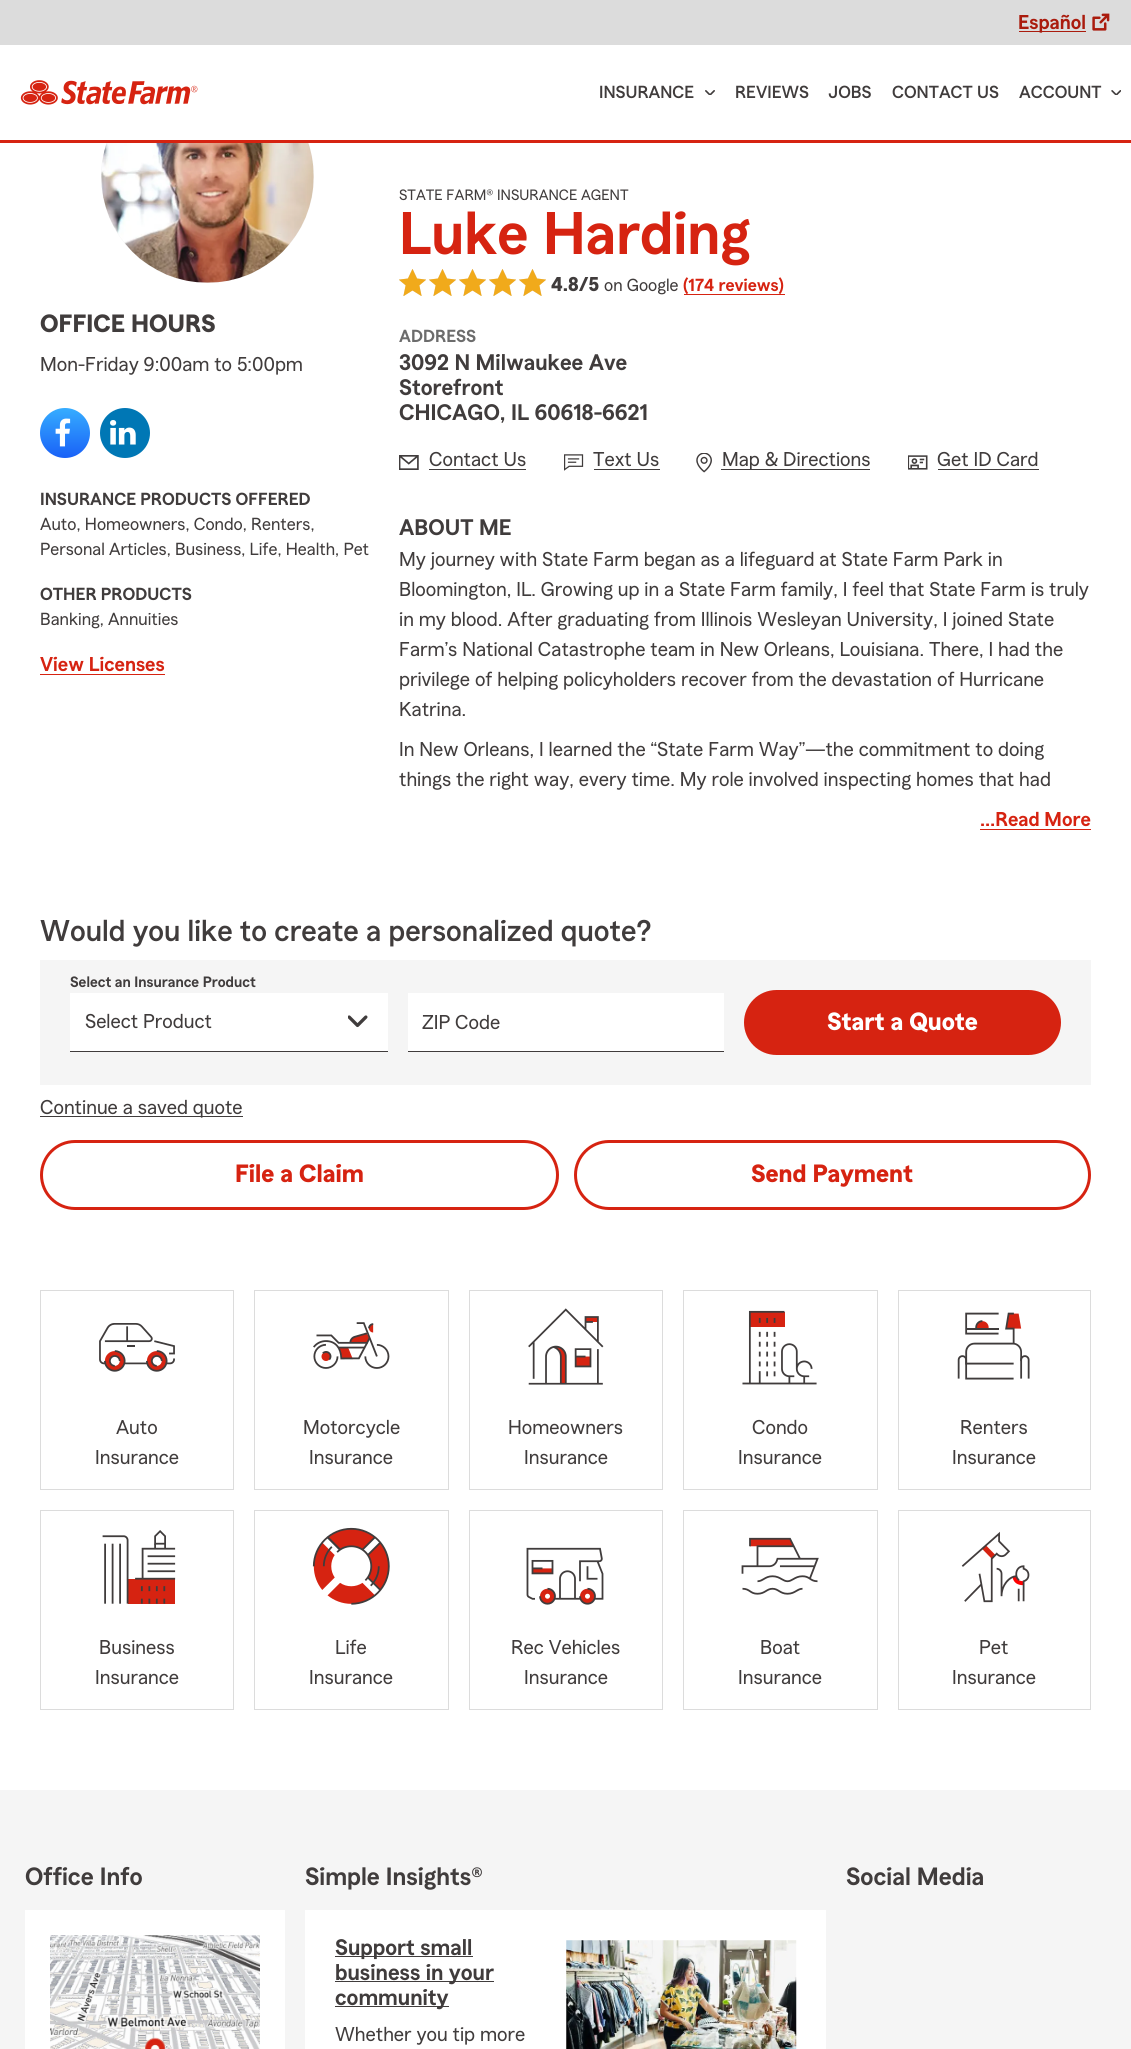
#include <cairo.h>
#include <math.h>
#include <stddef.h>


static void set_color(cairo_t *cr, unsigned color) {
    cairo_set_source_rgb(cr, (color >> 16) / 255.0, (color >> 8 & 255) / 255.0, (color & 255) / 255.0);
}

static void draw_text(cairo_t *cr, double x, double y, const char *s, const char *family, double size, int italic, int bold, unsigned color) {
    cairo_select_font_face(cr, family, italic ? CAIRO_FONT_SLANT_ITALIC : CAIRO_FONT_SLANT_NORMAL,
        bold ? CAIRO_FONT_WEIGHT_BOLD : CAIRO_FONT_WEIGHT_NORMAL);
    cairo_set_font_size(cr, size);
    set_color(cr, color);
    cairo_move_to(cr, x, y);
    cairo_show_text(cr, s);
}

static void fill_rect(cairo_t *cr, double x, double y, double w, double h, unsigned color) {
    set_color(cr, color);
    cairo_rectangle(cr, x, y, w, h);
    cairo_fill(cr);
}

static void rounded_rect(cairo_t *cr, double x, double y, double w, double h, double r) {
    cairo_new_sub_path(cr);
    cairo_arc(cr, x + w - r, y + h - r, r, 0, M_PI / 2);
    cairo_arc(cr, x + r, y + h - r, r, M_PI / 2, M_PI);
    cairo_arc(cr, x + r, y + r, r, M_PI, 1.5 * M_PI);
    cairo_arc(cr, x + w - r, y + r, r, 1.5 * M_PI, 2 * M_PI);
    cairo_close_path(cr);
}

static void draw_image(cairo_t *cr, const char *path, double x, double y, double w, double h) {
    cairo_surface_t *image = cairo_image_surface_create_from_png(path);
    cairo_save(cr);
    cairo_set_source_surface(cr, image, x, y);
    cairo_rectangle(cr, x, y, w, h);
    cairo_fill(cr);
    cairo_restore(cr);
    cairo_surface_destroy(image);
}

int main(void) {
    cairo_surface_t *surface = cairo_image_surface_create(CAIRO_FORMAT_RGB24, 1131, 2049);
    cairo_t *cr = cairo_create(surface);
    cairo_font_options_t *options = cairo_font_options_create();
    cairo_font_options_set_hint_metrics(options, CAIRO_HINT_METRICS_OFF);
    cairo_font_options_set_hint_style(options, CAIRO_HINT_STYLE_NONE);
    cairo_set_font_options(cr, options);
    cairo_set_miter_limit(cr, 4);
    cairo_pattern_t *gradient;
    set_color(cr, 0xFFFFFF);
    cairo_paint(cr);
    fill_rect(cr, 0, 0, 1131, 45, 0xDCDCDC);
    fill_rect(cr, 1019, 31, 67, 1, 0xAA1B0D);
    draw_text(cr, 1018, 29, "Español", "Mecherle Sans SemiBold", 20, 0, 0, 0xAA1B0D);
    draw_image(cr, "assets/img1.png", 1092, 13, 18, 18);
    set_color(cr, 0xF5F5F5);
    cairo_arc(cr, 207.5, 176.5, 109, 0, 2 * M_PI);
    cairo_fill_preserve(cr);
    set_color(cr, 0xFFFFFF);
    cairo_set_line_width(cr, 5);
    cairo_stroke(cr);
    fill_rect(cr, 107, 70, 201, 70, 0xFFFFFF);
    fill_rect(cr, 0, 140, 1131, 3, 0xD62311);
    draw_image(cr, "assets/img2.png", 20, 80, 178, 25);
    draw_text(cr, 599, 98, "INSURANCE", "Mecherle Sans Medium", 17.5, 0, 0, 0x403C3C);
    draw_image(cr, "assets/img3.png", 705, 90, 10, 5);
    draw_text(cr, 735, 98, "REVIEWS", "Mecherle Sans Medium", 17.5, 0, 0, 0x403C3C);
    draw_text(cr, 828, 98, "JOBS", "Mecherle Sans Medium", 17.5, 0, 0, 0x403C3C);
    draw_text(cr, 892, 98, "CONTACT US", "Mecherle Sans Medium", 17.5, 0, 0, 0x403C3C);
    draw_text(cr, 1019, 98, "ACCOUNT", "Mecherle Sans Medium", 17.5, 0, 0, 0x403C3C);
    draw_image(cr, "assets/img4.png", 1111, 90, 10, 5);
    draw_image(cr, "assets/img5.png", 101, 143, 213, 140);
    draw_text(cr, 40, 332, "OFFICE HOURS", "Mecherle Sans", 25, 0, 1, 0x403C3C);
    draw_text(cr, 40, 371, "Mon-Friday 9:00am to 5:00pm", "Mecherle Sans", 20, 0, 0, 0x403C3C);
    gradient = cairo_pattern_create_linear(65, 458, 65, 408);
    cairo_pattern_add_color_stop_rgba(gradient, 0, 0.098, 0.38, 0.969, 1);
    cairo_pattern_add_color_stop_rgba(gradient, 1, 0.212, 0.678, 1, 1);
    cairo_set_source(cr, gradient);
    cairo_pattern_destroy(gradient);
    cairo_new_path(cr);
    cairo_arc(cr, 65, 433, 25, 0, 2 * M_PI);
    cairo_fill(cr);
    draw_image(cr, "assets/img6.png", 55, 418, 16, 29);
    set_color(cr, 0x0077B5);
    cairo_arc(cr, 125, 433, 25, 0, 2 * M_PI);
    cairo_fill(cr);
    draw_image(cr, "assets/img7.png", 110, 420, 26, 25);
    draw_text(cr, 40, 505, "INSURANCE PRODUCTS OFFERED", "Mecherle Sans SemiBold", 17.5, 0, 0, 0x403C3C);
    draw_text(cr, 40, 530, "Auto, Homeowners, Condo, Renters,", "Mecherle Sans", 17.5, 0, 0, 0x403C3C);
    draw_text(cr, 40, 555, "Personal Articles, Business, Life, Health, Pet", "Mecherle Sans", 17.5, 0, 0, 0x403C3C);
    draw_text(cr, 40, 600, "OTHER PRODUCTS", "Mecherle Sans SemiBold", 17.5, 0, 0, 0x403C3C);
    draw_text(cr, 40, 625, "Banking, Annuities", "Mecherle Sans", 17.5, 0, 0, 0x403C3C);
    draw_text(cr, 40, 671, "View Licenses", "Mecherle Sans SemiBold", 20, 0, 0, 0xD62311);
    fill_rect(cr, 40, 674, 125, 1, 0xD62311);
    draw_text(cr, 399, 200, "STATE FARM® INSURANCE AGENT", "Mecherle Sans", 15, 0, 0, 0x403C3C);
    draw_text(cr, 399, 254, "Luke Harding", "Mecherle Sans SemiBold", 60, 0, 0, 0xD62311);
    draw_image(cr, "assets/img8.png", 399, 269, 27, 27);
    draw_image(cr, "assets/img8.png", 429, 269, 27, 27);
    draw_image(cr, "assets/img8.png", 459, 269, 27, 27);
    draw_image(cr, "assets/img8.png", 489, 269, 27, 27);
    draw_image(cr, "assets/img8.png", 519, 269, 27, 27);
    draw_text(cr, 551, 291, "4.8/5", "Mecherle Sans", 20, 0, 1, 0x403C3C);
    draw_text(cr, 604, 291, "on Google", "Mecherle Sans", 17.5, 0, 0, 0x403C3C);
    fill_rect(cr, 684, 294, 101, 1, 0xD62311);
    draw_text(cr, 683, 291, "(174 reviews)", "Mecherle Sans SemiBold", 17.5, 0, 0, 0xD62311);
    draw_text(cr, 399, 342, "ADDRESS", "Mecherle Sans SemiBold", 17.5, 0, 0, 0x6C6C6C);
    draw_text(cr, 399, 370, "3092 N Milwaukee Ave", "Mecherle Sans SemiBold", 22.5, 0, 0, 0x403C3C);
    draw_text(cr, 399, 395, "Storefront", "Mecherle Sans SemiBold", 22.5, 0, 0, 0x403C3C);
    draw_text(cr, 399, 420, "CHICAGO, IL 60618-6621", "Mecherle Sans SemiBold", 22.5, 0, 0, 0x403C3C);
    draw_image(cr, "assets/img9.png", 399, 455, 20, 15);
    draw_text(cr, 429, 466, "Contact Us", "Mecherle Sans", 20, 0, 0, 0x403C3C);
    fill_rect(cr, 429, 469, 97, 1, 0x403C3C);
    draw_image(cr, "assets/img10.png", 564, 454, 20, 17);
    draw_text(cr, 593, 466, "Text Us", "Mecherle Sans", 20, 0, 0, 0x403C3C);
    fill_rect(cr, 594, 469, 66, 1, 0x403C3C);
    draw_image(cr, "assets/img11.png", 696, 453, 16, 20);
    fill_rect(cr, 721, 469, 149, 1, 0x403C3C);
    draw_text(cr, 722, 466, "Map & Directions", "Mecherle Sans", 20, 0, 0, 0x403C3C);
    draw_image(cr, "assets/img12.png", 908, 455, 20, 15);
    draw_text(cr, 937, 466, "Get ID Card", "Mecherle Sans", 20, 0, 0, 0x403C3C);
    fill_rect(cr, 938, 469, 101, 1, 0x403C3C);
    draw_text(cr, 399, 535, "ABOUT ME", "Mecherle Sans SemiBold", 22.5, 0, 0, 0x403C3C);
    draw_text(cr, 399, 566, "My journey with State Farm began as a lifeguard at State Farm Park in", "Mecherle Sans", 20, 0, 0, 0x403C3C);
    draw_text(cr, 399, 596, "Bloomington, IL. Growing up in a State Farm family, I feel that State Farm is truly", "Mecherle Sans", 20, 0, 0, 0x403C3C);
    draw_text(cr, 399, 626, "in my blood. After graduating from Illinois Wesleyan University, I joined State", "Mecherle Sans", 20, 0, 0, 0x403C3C);
    draw_text(cr, 399, 656, "Farm’s National Catastrophe team in New Orleans, Louisiana. There, I had the", "Mecherle Sans", 20, 0, 0, 0x403C3C);
    draw_text(cr, 399, 686, "privilege of helping policyholders recover from the devastation of Hurricane", "Mecherle Sans", 20, 0, 0, 0x403C3C);
    draw_text(cr, 399, 716, "Katrina.", "Mecherle Sans", 20, 0, 0, 0x403C3C);
    draw_text(cr, 399, 756, "In New Orleans, I learned the “State Farm Way”—the commitment to doing", "Mecherle Sans", 20, 0, 0, 0x403C3C);
    draw_text(cr, 399, 786, "things the right way, every time. My role involved inspecting homes that had", "Mecherle Sans", 20, 0, 0, 0x403C3C);
    draw_text(cr, 980, 826, "…Read More", "Mecherle Sans SemiBold", 20, 0, 0, 0xD62311);
    fill_rect(cr, 980, 829, 111, 1, 0xD62311);
    draw_text(cr, 40, 941, "Would you like to create a personalized quote?", "Mecherle Sans Medium", 30, 0, 0, 0x403C3C);
    fill_rect(cr, 40, 960, 1051, 125, 0xF5F5F5);
    fill_rect(cr, 70, 1051, 318, 1, 0x403C3C);
    draw_text(cr, 70, 987, "Select an Insurance Product", "Mecherle Sans SemiBold", 15, 0, 0, 0x403C3C);
    fill_rect(cr, 70, 993, 318, 58, 0xFFFFFF);
    draw_text(cr, 85, 1028, "Select Product", "Mecherle Sans", 20, 0, 0, 0x403C3C);
    draw_image(cr, "assets/img13.png", 348, 1015, 20, 13);
    fill_rect(cr, 408, 993, 316, 58, 0xFFFFFF);
    fill_rect(cr, 408, 1051, 316, 1, 0x403C3C);
    draw_text(cr, 422, 1029, "ZIP Code", "Mecherle Sans", 20, 0, 0, 0x403C3C);
    set_color(cr, 0xD62311);
    rounded_rect(cr, 744, 990, 317, 65, 32.5);
    cairo_fill(cr);
    draw_text(cr, 827, 1030, "Start a Quote", "Mecherle Sans", 25, 0, 1, 0xFFFFFF);
    fill_rect(cr, 40, 1116, 203, 1, 0x403C3C);
    draw_text(cr, 40, 1114, "Continue a saved quote", "Mecherle Sans", 20, 0, 0, 0x403C3C);
    rounded_rect(cr, 41.5, 1141.5, 516, 67, 33.5);
    set_color(cr, 0xD62311);
    cairo_set_line_width(cr, 3);
    cairo_stroke(cr);
    draw_text(cr, 235, 1182, "File a Claim", "Mecherle Sans", 25, 0, 1, 0xD62311);
    rounded_rect(cr, 575.5, 1141.5, 514, 67, 33.5);
    cairo_stroke(cr);
    draw_text(cr, 751, 1182, "Send Payment", "Mecherle Sans", 25, 0, 1, 0xD62311);
    cairo_rectangle(cr, 40.5, 1290.5, 193, 199);
    set_color(cr, 0xDCDCDC);
    cairo_set_line_width(cr, 1);
    cairo_stroke(cr);
    draw_image(cr, "assets/img14.png", 99, 1323, 76, 49);
    draw_text(cr, 116, 1434, "Auto", "Mecherle Sans", 20, 0, 0, 0x403C3C);
    draw_text(cr, 95, 1464, "Insurance", "Mecherle Sans", 20, 0, 0, 0x403C3C);
    cairo_rectangle(cr, 254.5, 1290.5, 194, 199);
    set_color(cr, 0xDCDCDC);
    cairo_stroke(cr);
    draw_image(cr, "assets/img15.png", 313, 1322, 77, 47);
    draw_text(cr, 303, 1434, "Motorcycle", "Mecherle Sans", 20, 0, 0, 0x403C3C);
    draw_text(cr, 309, 1464, "Insurance", "Mecherle Sans", 20, 0, 0, 0x403C3C);
    cairo_rectangle(cr, 469.5, 1290.5, 193, 199);
    set_color(cr, 0xDCDCDC);
    cairo_stroke(cr);
    draw_image(cr, "assets/img16.png", 528, 1308, 76, 77);
    draw_text(cr, 508, 1434, "Homeowners", "Mecherle Sans", 20, 0, 0, 0x403C3C);
    draw_text(cr, 524, 1464, "Insurance", "Mecherle Sans", 20, 0, 0, 0x403C3C);
    cairo_rectangle(cr, 683.5, 1290.5, 194, 199);
    set_color(cr, 0xDCDCDC);
    cairo_stroke(cr);
    draw_image(cr, "assets/img17.png", 742, 1310, 75, 75);
    draw_text(cr, 752, 1434, "Condo", "Mecherle Sans", 20, 0, 0, 0x403C3C);
    draw_text(cr, 738, 1464, "Insurance", "Mecherle Sans", 20, 0, 0, 0x403C3C);
    cairo_rectangle(cr, 898.5, 1290.5, 192, 199);
    set_color(cr, 0xDCDCDC);
    cairo_stroke(cr);
    draw_image(cr, "assets/img18.png", 957, 1312, 73, 68);
    draw_text(cr, 960, 1434, "Renters", "Mecherle Sans", 20, 0, 0, 0x403C3C);
    draw_text(cr, 952, 1464, "Insurance", "Mecherle Sans", 20, 0, 0, 0x403C3C);
    cairo_rectangle(cr, 40.5, 1510.5, 193, 199);
    set_color(cr, 0xDCDCDC);
    cairo_stroke(cr);
    draw_image(cr, "assets/img19.png", 102, 1530, 74, 74);
    draw_text(cr, 99, 1654, "Business", "Mecherle Sans", 20, 0, 0, 0x403C3C);
    draw_text(cr, 95, 1684, "Insurance", "Mecherle Sans", 20, 0, 0, 0x403C3C);
    cairo_rectangle(cr, 254.5, 1510.5, 194, 199);
    set_color(cr, 0xDCDCDC);
    cairo_stroke(cr);
    draw_image(cr, "assets/img20.png", 312, 1527, 78, 78);
    draw_text(cr, 335, 1654, "Life", "Mecherle Sans", 20, 0, 0, 0x403C3C);
    draw_text(cr, 309, 1684, "Insurance", "Mecherle Sans", 20, 0, 0, 0x403C3C);
    cairo_rectangle(cr, 469.5, 1510.5, 193, 199);
    set_color(cr, 0xDCDCDC);
    cairo_stroke(cr);
    draw_image(cr, "assets/img21.png", 526, 1547, 78, 58);
    draw_text(cr, 511, 1654, "Rec Vehicles", "Mecherle Sans", 20, 0, 0, 0x403C3C);
    draw_text(cr, 524, 1684, "Insurance", "Mecherle Sans", 20, 0, 0, 0x403C3C);
    cairo_rectangle(cr, 683.5, 1510.5, 194, 199);
    set_color(cr, 0xDCDCDC);
    cairo_stroke(cr);
    draw_image(cr, "assets/img22.png", 741, 1537, 78, 58);
    draw_text(cr, 760, 1654, "Boat", "Mecherle Sans", 20, 0, 0, 0x403C3C);
    draw_text(cr, 738, 1684, "Insurance", "Mecherle Sans", 20, 0, 0, 0x403C3C);
    cairo_rectangle(cr, 898.5, 1510.5, 192, 199);
    set_color(cr, 0xDCDCDC);
    cairo_stroke(cr);
    draw_image(cr, "assets/img23.png", 961, 1531, 69, 72);
    draw_text(cr, 979, 1654, "Pet", "Mecherle Sans", 20, 0, 0, 0x403C3C);
    draw_text(cr, 952, 1684, "Insurance", "Mecherle Sans", 20, 0, 0, 0x403C3C);
    fill_rect(cr, 0, 1790, 1131, 259, 0xF5F5F5);
    draw_text(cr, 25, 1885, "Office Info", "Mecherle Sans SemiBold", 25, 0, 0, 0x403C3C);
    fill_rect(cr, 25, 1910, 260, 139, 0xFFFFFF);
    draw_image(cr, "assets/img24.png", 50, 1935, 210, 114);
    draw_text(cr, 305, 1885, "Simple Insights®", "Mecherle Sans SemiBold", 25, 0, 0, 0x403C3C);
    fill_rect(cr, 305, 1910, 521, 139, 0xFFFFFF);
    fill_rect(cr, 335, 1956, 138, 1, 0x403C3C);
    draw_text(cr, 335, 1955, "Support small", "Mecherle Sans SemiBold", 22.5, 0, 0, 0x403C3C);
    fill_rect(cr, 335, 1981, 159, 1, 0x403C3C);
    draw_text(cr, 335, 1980, "business in your", "Mecherle Sans SemiBold", 22.5, 0, 0, 0x403C3C);
    fill_rect(cr, 335, 2006, 114, 1, 0x403C3C);
    draw_text(cr, 335, 2005, "community", "Mecherle Sans SemiBold", 22.5, 0, 0, 0x403C3C);
    draw_text(cr, 335, 2041, "Whether you tip more", "Mecherle Sans", 20, 0, 0, 0x403C3C);
    draw_image(cr, "assets/img25.png", 566, 1940, 231, 109);
    draw_text(cr, 846, 1885, "Social Media", "Mecherle Sans SemiBold", 25, 0, 0, 0x403C3C);
    cairo_surface_write_to_png(surface, "output.png");
    cairo_font_options_destroy(options);
    cairo_destroy(cr);
    cairo_surface_destroy(surface);
    return 0;
}
